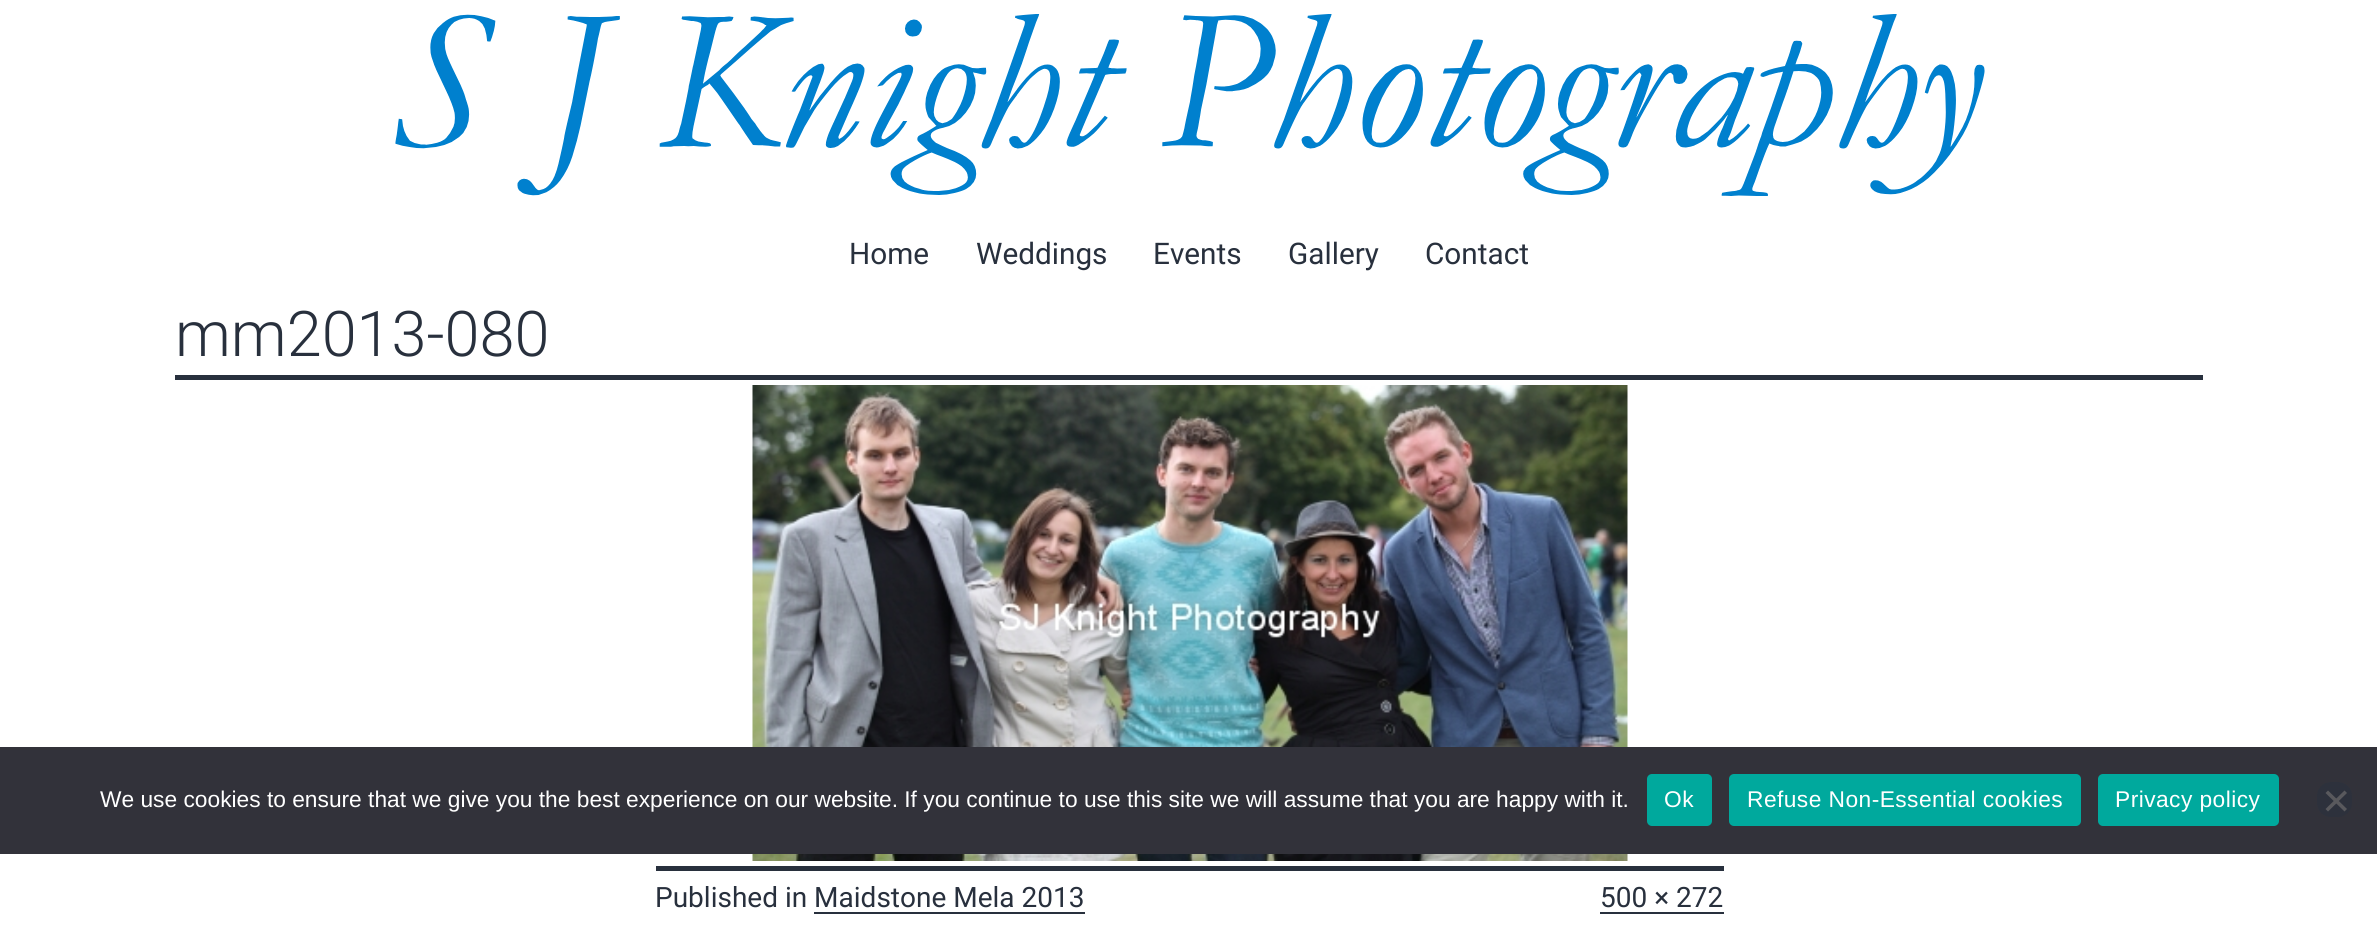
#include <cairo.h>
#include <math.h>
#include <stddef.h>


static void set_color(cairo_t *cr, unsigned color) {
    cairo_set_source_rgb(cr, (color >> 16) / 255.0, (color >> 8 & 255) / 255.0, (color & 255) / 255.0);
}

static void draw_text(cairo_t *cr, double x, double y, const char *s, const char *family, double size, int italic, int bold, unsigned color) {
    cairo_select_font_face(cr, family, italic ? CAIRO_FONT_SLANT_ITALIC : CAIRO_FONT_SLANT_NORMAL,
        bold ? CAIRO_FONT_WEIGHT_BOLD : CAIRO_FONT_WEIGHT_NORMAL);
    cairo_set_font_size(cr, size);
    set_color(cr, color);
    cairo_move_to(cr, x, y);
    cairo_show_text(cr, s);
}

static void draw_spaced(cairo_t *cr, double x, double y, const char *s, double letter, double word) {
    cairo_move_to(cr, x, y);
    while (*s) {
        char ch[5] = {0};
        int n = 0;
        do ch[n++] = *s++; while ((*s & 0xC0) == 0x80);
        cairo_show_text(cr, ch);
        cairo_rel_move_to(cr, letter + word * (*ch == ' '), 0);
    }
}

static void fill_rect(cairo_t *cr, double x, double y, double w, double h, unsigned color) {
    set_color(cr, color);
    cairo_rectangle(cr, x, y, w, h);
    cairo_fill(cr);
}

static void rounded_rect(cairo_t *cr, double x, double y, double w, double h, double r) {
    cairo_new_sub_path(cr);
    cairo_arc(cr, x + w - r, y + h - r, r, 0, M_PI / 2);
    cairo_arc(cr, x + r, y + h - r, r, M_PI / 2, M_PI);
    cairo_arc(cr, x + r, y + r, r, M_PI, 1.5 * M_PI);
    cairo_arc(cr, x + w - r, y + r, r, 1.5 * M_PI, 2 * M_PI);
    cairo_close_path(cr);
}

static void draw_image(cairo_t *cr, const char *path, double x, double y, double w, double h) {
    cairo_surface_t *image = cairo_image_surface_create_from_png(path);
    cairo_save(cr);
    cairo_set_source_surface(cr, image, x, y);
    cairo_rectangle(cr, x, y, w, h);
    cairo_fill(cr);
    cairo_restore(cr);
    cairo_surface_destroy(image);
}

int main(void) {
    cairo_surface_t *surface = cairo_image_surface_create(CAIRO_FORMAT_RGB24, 2377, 941);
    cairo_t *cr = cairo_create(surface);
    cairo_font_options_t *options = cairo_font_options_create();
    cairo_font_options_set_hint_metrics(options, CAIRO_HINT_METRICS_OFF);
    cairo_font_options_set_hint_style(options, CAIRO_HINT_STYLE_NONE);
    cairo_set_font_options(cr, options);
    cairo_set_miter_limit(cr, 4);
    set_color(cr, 0xFFFFFF);
    cairo_paint(cr);
    draw_image(cr, "assets/img1.png", 395, 14, 1590, 182);
    draw_text(cr, 849, 264, "Home", "Roboto", 29.75, 0, 0, 0x28303D);
    draw_text(cr, 976, 264, "Weddings", "Roboto", 29.75, 0, 0, 0x28303D);
    draw_text(cr, 1153, 264, "Events", "Roboto", 29.75, 0, 0, 0x28303D);
    draw_text(cr, 1288, 264, "Gallery", "Roboto", 29.75, 0, 0, 0x28303D);
    draw_text(cr, 1425, 264, "Contact", "Roboto", 29.75, 0, 0, 0x28303D);
    fill_rect(cr, 175, 375, 2028, 5, 0x28303D);
    draw_text(cr, 175, 356, "mm2013-080", "Roboto Light", 63, 0, 0, 0x28303D);
    draw_image(cr, "assets/img2.png", 752, 385, 876, 476);
    fill_rect(cr, 656, 866, 1068, 5, 0x28303D);
    draw_text(cr, 655, 907, "Published in Maidstone Mela 2013", "Roboto", 28, 0, 0, 0x28303D);
    fill_rect(cr, 814, 912, 271, 2, 0x28303D);
    draw_text(cr, 1600, 907, "500 × 272", "Roboto", 28, 0, 0, 0x28303D);
    fill_rect(cr, 1600, 912, 124, 2, 0x28303D);
    fill_rect(cr, 0, 747, 2377, 107, 0x32323A);
    draw_text(cr, 100, 807, "We use cookies to ensure that we give you the best experience on our website. If you continue to use this site we will assume that you are happy with it.", "Liberation Sans", 22.75, 0, 0, 0xFFFFFF);
    set_color(cr, 0x00A99D);
    rounded_rect(cr, 1647, 774, 65, 52, 5);
    cairo_fill(cr);
    set_color(cr, 0xFFFFFF);
    draw_spaced(cr, 1664, 807, "Ok", 0.45, 0);
    set_color(cr, 0x00A99D);
    rounded_rect(cr, 1729, 774, 352, 52, 5);
    cairo_fill(cr);
    set_color(cr, 0xFFFFFF);
    draw_spaced(cr, 1747, 807, "Refuse Non-Essential cookies", 0.45, 0);
    set_color(cr, 0x00A99D);
    rounded_rect(cr, 2098, 774, 181, 52, 5);
    cairo_fill(cr);
    set_color(cr, 0xFFFFFF);
    draw_spaced(cr, 2115, 807, "Privacy policy", 0.45, 0);
    set_color(cr, 0x2D313C);
    rounded_rect(cr, 2317, 782, 35, 35, 14);
    cairo_fill(cr);
    set_color(cr, 0x59595D);
    cairo_new_path(cr);
    cairo_move_to(cr, 2344.5, 790.5);
    cairo_line_to(cr, 2347, 793);
    cairo_line_to(cr, 2328, 811.5);
    cairo_line_to(cr, 2325.5, 809);
    cairo_close_path(cr);
    cairo_fill(cr);
    cairo_new_path(cr);
    cairo_move_to(cr, 2325.5, 793);
    cairo_line_to(cr, 2328, 790.5);
    cairo_line_to(cr, 2347, 809);
    cairo_line_to(cr, 2344.5, 811.5);
    cairo_close_path(cr);
    cairo_fill(cr);
    cairo_surface_write_to_png(surface, "output.png");
    cairo_font_options_destroy(options);
    cairo_destroy(cr);
    cairo_surface_destroy(surface);
    return 0;
}
